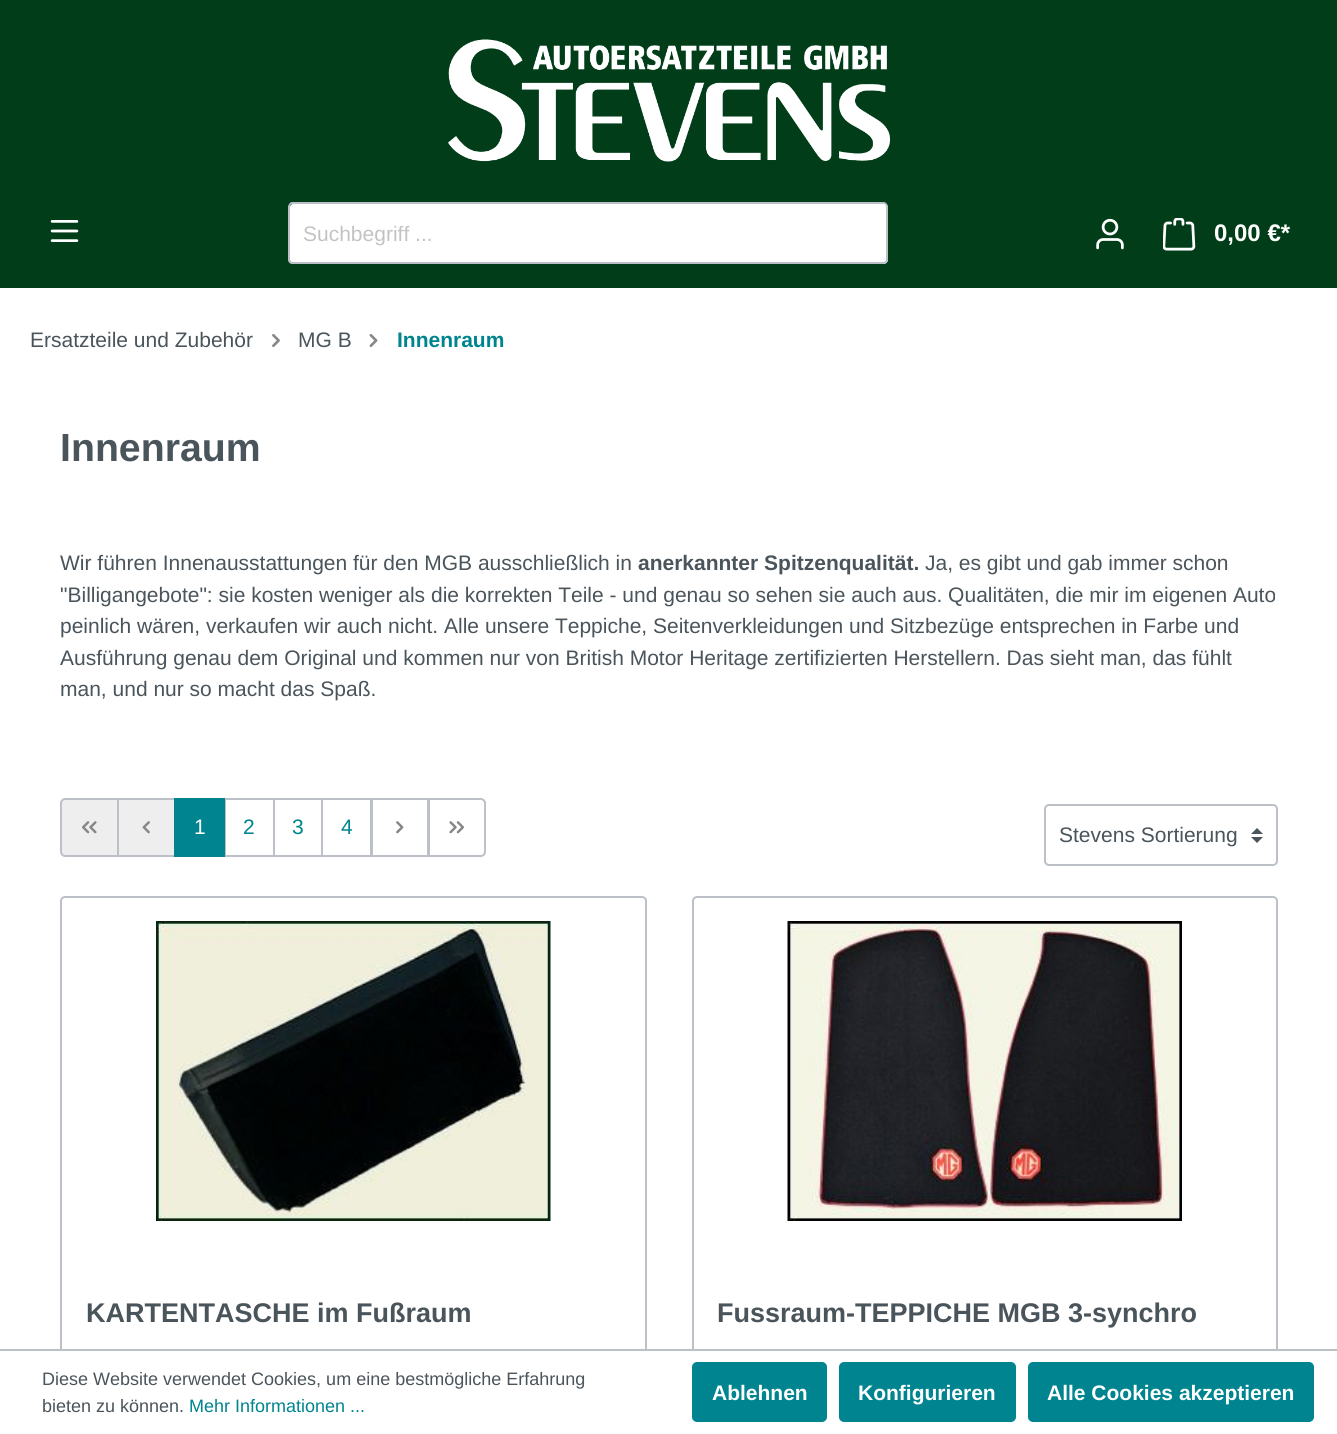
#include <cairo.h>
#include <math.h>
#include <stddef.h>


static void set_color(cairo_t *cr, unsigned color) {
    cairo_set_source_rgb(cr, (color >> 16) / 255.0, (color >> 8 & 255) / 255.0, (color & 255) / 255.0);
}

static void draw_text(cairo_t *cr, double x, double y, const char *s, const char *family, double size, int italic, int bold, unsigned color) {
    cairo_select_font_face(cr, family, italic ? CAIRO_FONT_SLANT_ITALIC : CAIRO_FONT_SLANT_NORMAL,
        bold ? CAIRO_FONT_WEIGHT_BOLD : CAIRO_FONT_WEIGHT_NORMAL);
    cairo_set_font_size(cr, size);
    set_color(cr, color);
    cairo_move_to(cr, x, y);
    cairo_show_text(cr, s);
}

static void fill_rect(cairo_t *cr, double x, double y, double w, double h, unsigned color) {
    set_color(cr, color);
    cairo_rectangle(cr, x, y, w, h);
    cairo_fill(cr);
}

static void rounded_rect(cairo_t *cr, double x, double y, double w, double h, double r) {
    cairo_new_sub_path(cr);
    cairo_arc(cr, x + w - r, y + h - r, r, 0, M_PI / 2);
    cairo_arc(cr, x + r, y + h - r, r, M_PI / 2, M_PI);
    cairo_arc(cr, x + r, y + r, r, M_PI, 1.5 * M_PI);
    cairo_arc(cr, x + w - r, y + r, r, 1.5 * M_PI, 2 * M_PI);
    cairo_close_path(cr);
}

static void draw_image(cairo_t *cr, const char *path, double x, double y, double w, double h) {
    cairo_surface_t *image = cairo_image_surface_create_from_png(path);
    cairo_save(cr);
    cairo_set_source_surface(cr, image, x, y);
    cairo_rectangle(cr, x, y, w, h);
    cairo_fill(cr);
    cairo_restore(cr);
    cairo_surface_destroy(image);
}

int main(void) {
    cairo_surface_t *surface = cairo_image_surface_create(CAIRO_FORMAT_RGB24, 1337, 1434);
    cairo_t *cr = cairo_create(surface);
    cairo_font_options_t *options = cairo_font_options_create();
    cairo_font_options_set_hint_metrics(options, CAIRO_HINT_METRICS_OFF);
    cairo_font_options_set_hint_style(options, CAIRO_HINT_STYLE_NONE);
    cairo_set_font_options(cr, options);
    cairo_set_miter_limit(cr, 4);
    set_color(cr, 0x003D18);
    cairo_paint(cr);
    draw_image(cr, "assets/img1.png", 448, 39, 443, 123);
    draw_image(cr, "assets/img2.png", 50, 220, 29, 22);
    set_color(cr, 0xFFFFFF);
    cairo_new_path(cr);
    cairo_move_to(cr, 293, 204);
    cairo_line_to(cr, 819, 204);
    cairo_line_to(cr, 819, 263);
    cairo_line_to(cr, 293, 263);
    cairo_curve_to(cr, 291.5, 263, 290, 261.5, 290, 260);
    cairo_line_to(cr, 290, 207);
    cairo_curve_to(cr, 290, 205.5, 291.5, 204, 293, 204);
    cairo_close_path(cr);
    cairo_fill(cr);
    set_color(cr, 0xBCC1C7);
    cairo_set_fill_rule(cr, CAIRO_FILL_RULE_EVEN_ODD);
    cairo_new_path(cr);
    cairo_move_to(cr, 292, 202);
    cairo_line_to(cr, 819, 202);
    cairo_line_to(cr, 819, 264);
    cairo_line_to(cr, 292, 264);
    cairo_curve_to(cr, 290, 264, 288, 262, 288, 260);
    cairo_line_to(cr, 288, 207);
    cairo_curve_to(cr, 288, 205, 290, 202, 292, 202);
    cairo_close_path(cr);
    cairo_move_to(cr, 292, 204);
    cairo_line_to(cr, 819, 204);
    cairo_line_to(cr, 819, 262);
    cairo_line_to(cr, 292, 262);
    cairo_curve_to(cr, 291, 262, 290, 261, 290, 260);
    cairo_line_to(cr, 290, 207);
    cairo_curve_to(cr, 290, 205, 291, 204, 292, 204);
    cairo_close_path(cr);
    cairo_fill(cr);
    draw_text(cr, 303, 241, "Suchbegriff ...", "Liberation Sans", 21, 0, 0, 0xC3C3C3);
    set_color(cr, 0xFFFFFF);
    cairo_new_path(cr);
    cairo_move_to(cr, 818, 203);
    cairo_line_to(cr, 883, 203);
    cairo_curve_to(cr, 886, 203, 888, 205, 888, 208);
    cairo_line_to(cr, 888, 259);
    cairo_curve_to(cr, 888, 262, 886, 264, 883, 264);
    cairo_line_to(cr, 818, 264);
    cairo_close_path(cr);
    cairo_fill(cr);
    set_color(cr, 0xBCC1C7);
    cairo_new_path(cr);
    cairo_move_to(cr, 818, 202);
    cairo_line_to(cr, 884, 202);
    cairo_curve_to(cr, 886, 202, 888, 205, 888, 207);
    cairo_line_to(cr, 888, 260);
    cairo_curve_to(cr, 888, 262, 886, 264, 884, 264);
    cairo_line_to(cr, 818, 264);
    cairo_close_path(cr);
    cairo_move_to(cr, 818, 204);
    cairo_line_to(cr, 884, 204);
    cairo_curve_to(cr, 885, 204, 886, 205, 886, 207);
    cairo_line_to(cr, 886, 260);
    cairo_curve_to(cr, 886, 261, 885, 262, 884, 262);
    cairo_line_to(cr, 818, 262);
    cairo_close_path(cr);
    cairo_fill(cr);
    draw_image(cr, "assets/img3.png", 1096, 218, 28, 32);
    draw_image(cr, "assets/img4.png", 1163, 218, 33, 33);
    draw_text(cr, 1214, 241, "0,00 €*", "Liberation Sans", 24, 0, 1, 0xFFFFFF);
    fill_rect(cr, 0, 288, 1337, 1061, 0xFFFFFF);
    draw_text(cr, 30, 347, "Ersatzteile und Zubehör", "Liberation Sans", 21, 0, 0, 0x4A545B);
    draw_image(cr, "assets/img5.png", 272, 334, 8, 13);
    draw_text(cr, 298, 347, "MG B", "Liberation Sans", 21, 0, 0, 0x4A545B);
    draw_image(cr, "assets/img6.png", 369, 334, 9, 13);
    draw_text(cr, 397, 347, "Innenraum", "Liberation Sans", 21, 0, 1, 0x008490);
    draw_text(cr, 60, 461, "Innenraum", "Liberation Sans", 39.25, 0, 1, 0x4A545B);
    draw_text(cr, 60, 570, "Wir führen Innenausstattungen für den MGB ausschließlich in", "Liberation Sans", 21, 0, 0, 0x4A545B);
    draw_text(cr, 638, 570, "anerkannter Spitzenqualität.", "Liberation Sans", 21, 0, 1, 0x4A545B);
    draw_text(cr, 925, 570, "Ja, es gibt und gab immer schon", "Liberation Sans", 21, 0, 0, 0x4A545B);
    draw_text(cr, 60, 602, "\"Billigangebote\": sie kosten weniger als die korrekten Teile - und genau so sehen sie auch aus. Qualitäten, die mir im eigenen Auto", "Liberation Sans", 21, 0, 0, 0x4A545B);
    draw_text(cr, 60, 633, "peinlich wären, verkaufen wir auch nicht. Alle unsere Teppiche, Seitenverkleidungen und Sitzbezüge entsprechen in Farbe und", "Liberation Sans", 21, 0, 0, 0x4A545B);
    draw_text(cr, 60, 665, "Ausführung genau dem Original und kommen nur von British Motor Heritage zertifizierten Herstellern. Das sieht man, das fühlt", "Liberation Sans", 21, 0, 0, 0x4A545B);
    draw_text(cr, 60, 696, "man, und nur so macht das Spaß.", "Liberation Sans", 21, 0, 0, 0x4A545B);
    set_color(cr, 0xEEEEEE);
    cairo_new_path(cr);
    cairo_move_to(cr, 65, 799);
    cairo_line_to(cr, 118, 799);
    cairo_line_to(cr, 118, 856);
    cairo_line_to(cr, 65, 856);
    cairo_curve_to(cr, 63, 856, 61, 854, 61, 852);
    cairo_line_to(cr, 61, 803);
    cairo_curve_to(cr, 61, 801, 63, 799, 65, 799);
    cairo_close_path(cr);
    cairo_fill_preserve(cr);
    set_color(cr, 0xBCC1C7);
    cairo_stroke(cr);
    draw_image(cr, "assets/img7.png", 82, 821, 15, 13);
    set_color(cr, 0xEEEEEE);
    cairo_rectangle(cr, 118, 799, 57, 57);
    cairo_fill_preserve(cr);
    set_color(cr, 0xBCC1C7);
    cairo_stroke(cr);
    draw_image(cr, "assets/img8.png", 142, 821, 8, 13);
    cairo_rectangle(cr, 225, 799, 49, 57);
    cairo_stroke(cr);
    fill_rect(cr, 174, 798, 51, 59, 0x008490);
    draw_text(cr, 194, 834, "1", "Liberation Sans", 21, 0, 0, 0xFFFFFF);
    draw_text(cr, 243, 834, "2", "Liberation Sans", 21, 0, 0, 0x008490);
    cairo_rectangle(cr, 274, 799, 48, 57);
    set_color(cr, 0xBCC1C7);
    cairo_stroke(cr);
    draw_text(cr, 292, 834, "3", "Liberation Sans", 21, 0, 0, 0x008490);
    cairo_rectangle(cr, 322, 799, 49, 57);
    set_color(cr, 0xBCC1C7);
    cairo_stroke(cr);
    draw_text(cr, 341, 834, "4", "Liberation Sans", 21, 0, 0, 0x008490);
    cairo_rectangle(cr, 372, 799, 56, 57);
    set_color(cr, 0xBCC1C7);
    cairo_stroke(cr);
    draw_image(cr, "assets/img9.png", 396, 821, 8, 13);
    set_color(cr, 0xFFFFFF);
    cairo_new_path(cr);
    cairo_move_to(cr, 429, 799);
    cairo_line_to(cr, 481, 799);
    cairo_curve_to(cr, 483, 799, 485, 801, 485, 803);
    cairo_line_to(cr, 485, 852);
    cairo_curve_to(cr, 485, 854, 483, 856, 481, 856);
    cairo_line_to(cr, 429, 856);
    cairo_close_path(cr);
    cairo_fill_preserve(cr);
    set_color(cr, 0xBCC1C7);
    cairo_stroke(cr);
    draw_image(cr, "assets/img10.png", 449, 821, 15, 13);
    draw_image(cr, "assets/img11.png", 1251, 828, 12, 15);
    rounded_rect(cr, 1045, 805, 232, 60, 4);
    cairo_stroke(cr);
    draw_text(cr, 1059, 842, "Stevens Sortierung", "Liberation Sans", 21, 0, 0, 0x4A545B);
    rounded_rect(cr, 61, 897, 585, 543, 4);
    set_color(cr, 0xBCC1C7);
    cairo_stroke(cr);
    draw_image(cr, "assets/img12.png", 156, 921, 395, 300);
    draw_text(cr, 86, 1322, "KARTENTASCHE im Fußraum", "Liberation Sans", 27, 0, 1, 0x4A545B);
    rounded_rect(cr, 693, 897, 584, 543, 4);
    set_color(cr, 0xBCC1C7);
    cairo_stroke(cr);
    draw_image(cr, "assets/img13.png", 787, 921, 395, 300);
    draw_text(cr, 717, 1322, "Fussraum-TEPPICHE MGB 3-synchro", "Liberation Sans", 27, 0, 1, 0x4A545B);
    fill_rect(cr, 0, 1351, 1337, 83, 0xFFFFFF);
    fill_rect(cr, 0, 1349, 1337, 2, 0xBCC1C7);
    draw_text(cr, 42, 1385, "Diese Website verwendet Cookies, um eine bestmögliche Erfahrung", "Liberation Sans", 18, 0, 0, 0x4A545B);
    draw_text(cr, 42, 1412, "bieten zu können.", "Liberation Sans", 18, 0, 0, 0x4A545B);
    draw_text(cr, 189, 1412, "Mehr Informationen ...", "Liberation Sans", 18, 0, 0, 0x008490);
    rounded_rect(cr, 693, 1363, 133, 58, 4);
    cairo_fill_preserve(cr);
    cairo_stroke(cr);
    draw_text(cr, 712, 1400, "Ablehnen", "Liberation Sans", 21, 0, 1, 0xFFFFFF);
    set_color(cr, 0x008490);
    rounded_rect(cr, 840, 1363, 175, 58, 4);
    cairo_fill_preserve(cr);
    cairo_stroke(cr);
    draw_text(cr, 858, 1400, "Konfigurieren", "Liberation Sans", 21, 0, 1, 0xFFFFFF);
    set_color(cr, 0x008490);
    rounded_rect(cr, 1029, 1363, 284, 58, 4);
    cairo_fill_preserve(cr);
    cairo_stroke(cr);
    draw_text(cr, 1047, 1400, "Alle Cookies akzeptieren", "Liberation Sans", 21, 0, 1, 0xFFFFFF);
    cairo_surface_write_to_png(surface, "output.png");
    cairo_font_options_destroy(options);
    cairo_destroy(cr);
    cairo_surface_destroy(surface);
    return 0;
}
